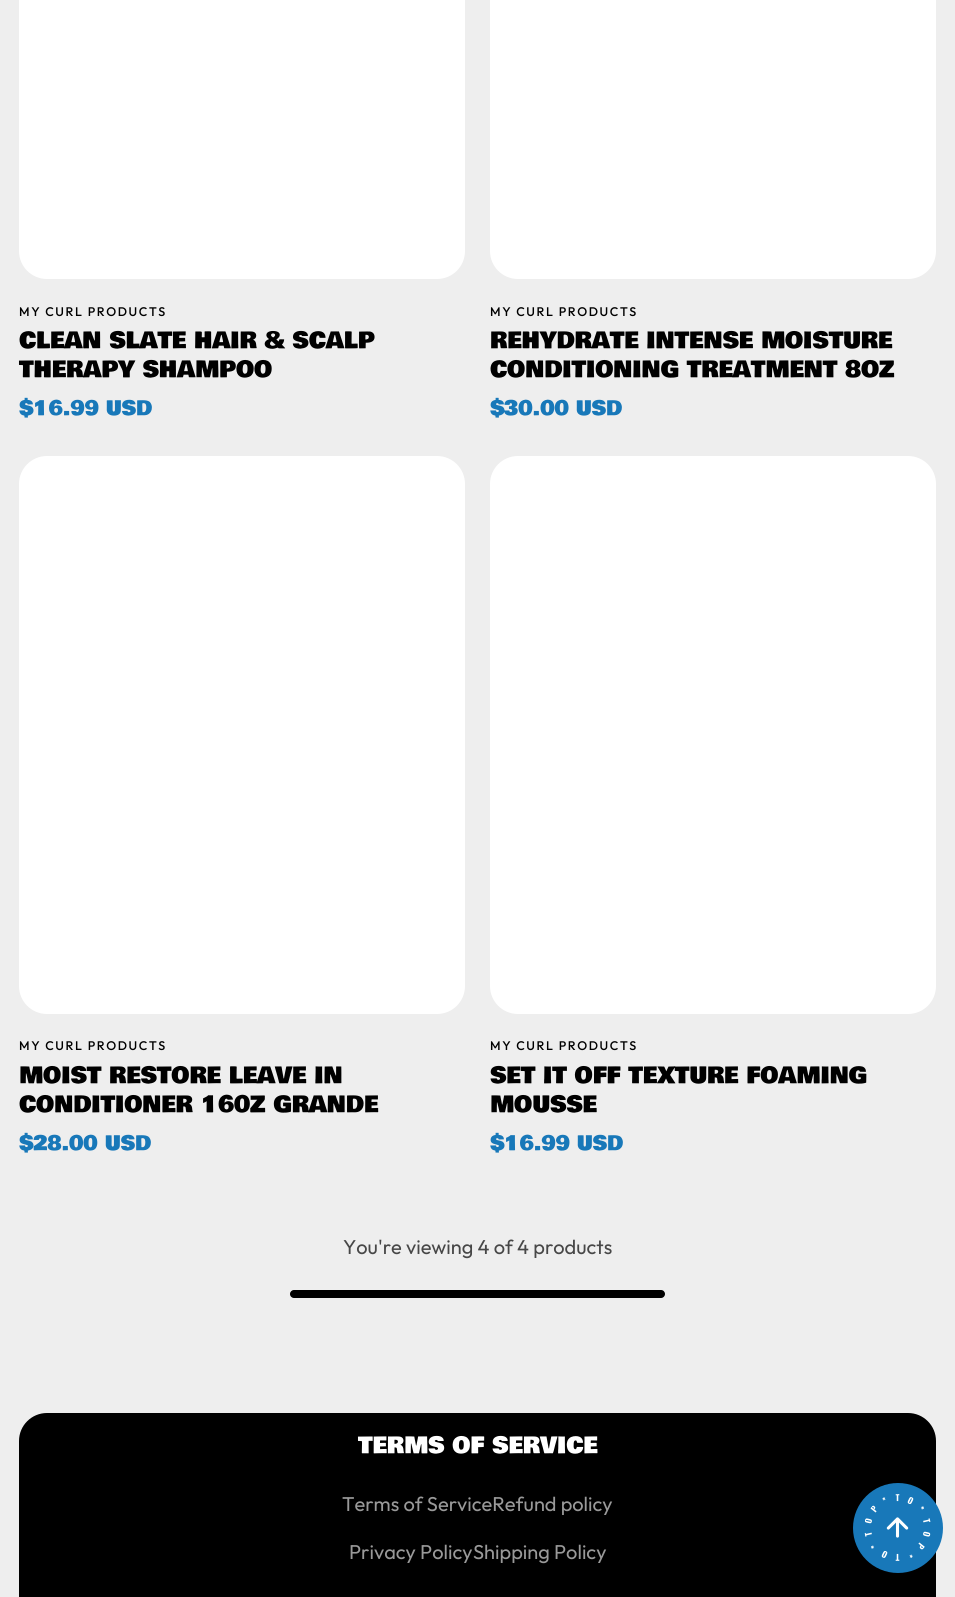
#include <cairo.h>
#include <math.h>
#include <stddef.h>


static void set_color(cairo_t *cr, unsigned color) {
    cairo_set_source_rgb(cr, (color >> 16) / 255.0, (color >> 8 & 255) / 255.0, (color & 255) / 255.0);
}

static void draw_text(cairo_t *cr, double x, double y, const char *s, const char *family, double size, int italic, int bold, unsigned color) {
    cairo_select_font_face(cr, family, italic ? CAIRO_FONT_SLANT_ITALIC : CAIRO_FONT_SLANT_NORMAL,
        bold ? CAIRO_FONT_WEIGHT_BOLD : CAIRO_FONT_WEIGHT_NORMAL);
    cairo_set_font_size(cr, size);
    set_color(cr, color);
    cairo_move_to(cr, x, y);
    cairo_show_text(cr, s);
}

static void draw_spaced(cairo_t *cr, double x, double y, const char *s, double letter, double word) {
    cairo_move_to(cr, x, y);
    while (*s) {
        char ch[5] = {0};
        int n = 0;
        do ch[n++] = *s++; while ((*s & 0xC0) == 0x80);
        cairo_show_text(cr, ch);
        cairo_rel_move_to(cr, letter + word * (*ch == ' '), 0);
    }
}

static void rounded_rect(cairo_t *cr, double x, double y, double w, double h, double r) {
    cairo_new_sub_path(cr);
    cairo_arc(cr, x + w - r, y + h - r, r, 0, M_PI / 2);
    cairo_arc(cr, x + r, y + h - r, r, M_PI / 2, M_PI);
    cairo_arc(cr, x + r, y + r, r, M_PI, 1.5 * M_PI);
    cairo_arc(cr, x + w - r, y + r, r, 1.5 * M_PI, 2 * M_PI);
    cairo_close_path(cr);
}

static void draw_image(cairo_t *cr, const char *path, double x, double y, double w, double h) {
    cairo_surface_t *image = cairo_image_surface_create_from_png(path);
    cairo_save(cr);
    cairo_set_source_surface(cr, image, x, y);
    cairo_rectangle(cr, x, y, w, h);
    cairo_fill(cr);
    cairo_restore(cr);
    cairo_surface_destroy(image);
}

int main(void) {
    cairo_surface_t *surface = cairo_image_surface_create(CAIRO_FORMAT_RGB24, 955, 1597);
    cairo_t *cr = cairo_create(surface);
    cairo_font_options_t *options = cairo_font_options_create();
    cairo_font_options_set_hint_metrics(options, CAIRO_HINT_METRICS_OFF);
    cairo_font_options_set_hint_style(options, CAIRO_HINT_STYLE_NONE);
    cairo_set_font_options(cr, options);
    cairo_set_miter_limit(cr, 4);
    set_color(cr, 0xEEEEEE);
    cairo_paint(cr);
    set_color(cr, 0xFFFFFF);
    rounded_rect(cr, 19, -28, 446, 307, 28);
    cairo_fill(cr);
    cairo_select_font_face(cr, "Outfit Medium", CAIRO_FONT_SLANT_NORMAL, CAIRO_FONT_WEIGHT_NORMAL);
    cairo_set_font_size(cr, 12.5);
    set_color(cr, 0x000000);
    draw_spaced(cr, 19, 316, "MY CURL PRODUCTS", 1.6, 0);
    draw_text(cr, 19, 348, "CLEAN SLATE HAIR & SCALP", "Bowlby One", 22.5, 0, 0, 0x000000);
    draw_text(cr, 19, 377, "THERAPY SHAMPOO", "Bowlby One", 22.5, 0, 0, 0x000000);
    draw_text(cr, 19, 415, "$16.99 USD", "Bowlby One", 20, 0, 0, 0x1878B9);
    set_color(cr, 0xFFFFFF);
    rounded_rect(cr, 490, -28, 446, 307, 28);
    cairo_fill(cr);
    cairo_select_font_face(cr, "Outfit Medium", CAIRO_FONT_SLANT_NORMAL, CAIRO_FONT_WEIGHT_NORMAL);
    cairo_set_font_size(cr, 12.5);
    set_color(cr, 0x000000);
    draw_spaced(cr, 490, 316, "MY CURL PRODUCTS", 1.6, 0);
    draw_text(cr, 490, 348, "REHYDRATE INTENSE MOISTURE", "Bowlby One", 22.5, 0, 0, 0x000000);
    draw_text(cr, 490, 377, "CONDITIONING TREATMENT 8OZ", "Bowlby One", 22.5, 0, 0, 0x000000);
    draw_text(cr, 490, 415, "$30.00 USD", "Bowlby One", 20, 0, 0, 0x1878B9);
    set_color(cr, 0xFFFFFF);
    rounded_rect(cr, 19, 456, 446, 558, 28);
    cairo_fill(cr);
    cairo_select_font_face(cr, "Outfit Medium", CAIRO_FONT_SLANT_NORMAL, CAIRO_FONT_WEIGHT_NORMAL);
    cairo_set_font_size(cr, 12.5);
    set_color(cr, 0x000000);
    draw_spaced(cr, 19, 1050, "MY CURL PRODUCTS", 1.6, 0);
    draw_text(cr, 19, 1083, "MOIST RESTORE LEAVE IN", "Bowlby One", 22.5, 0, 0, 0x000000);
    draw_text(cr, 19, 1112, "CONDITIONER 160Z GRANDE", "Bowlby One", 22.5, 0, 0, 0x000000);
    draw_text(cr, 19, 1150, "$28.00 USD", "Bowlby One", 20, 0, 0, 0x1878B9);
    set_color(cr, 0xFFFFFF);
    rounded_rect(cr, 490, 456, 446, 558, 28);
    cairo_fill(cr);
    cairo_select_font_face(cr, "Outfit Medium", CAIRO_FONT_SLANT_NORMAL, CAIRO_FONT_WEIGHT_NORMAL);
    cairo_set_font_size(cr, 12.5);
    set_color(cr, 0x000000);
    draw_spaced(cr, 490, 1050, "MY CURL PRODUCTS", 1.6, 0);
    draw_text(cr, 490, 1083, "SET IT OFF TEXTURE FOAMING", "Bowlby One", 22.5, 0, 0, 0x000000);
    draw_text(cr, 490, 1112, "MOUSSE", "Bowlby One", 22.5, 0, 0, 0x000000);
    draw_text(cr, 490, 1150, "$16.99 USD", "Bowlby One", 20, 0, 0, 0x1878B9);
    draw_text(cr, 343, 1254, "You're viewing 4 of 4 products", "Outfit", 20, 0, 0, 0x474747);
    set_color(cr, 0x000000);
    rounded_rect(cr, 290, 1290, 375, 8, 4);
    cairo_fill(cr);
    rounded_rect(cr, 19, 1413, 917, 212, 28);
    cairo_fill(cr);
    draw_text(cr, 358, 1453, "TERMS OF SERVICE", "Bowlby One", 22.5, 0, 0, 0xFFFFFF);
    draw_text(cr, 342, 1511, "Terms of ServiceRefund policy", "Outfit", 20, 0, 0, 0x999999);
    draw_text(cr, 349, 1559, "Privacy Policy", "Outfit", 20, 0, 0, 0x999999);
    draw_text(cr, 473, 1559, "Shipping Policy", "Outfit", 20, 0, 0, 0x999999);
    set_color(cr, 0x1878B9);
    cairo_new_path(cr);
    cairo_arc(cr, 898, 1528, 45, 0, 2 * M_PI);
    cairo_fill(cr);
    draw_image(cr, "assets/img1.png", 864, 1494, 67, 67);
    draw_image(cr, "assets/img2.png", 886, 1517, 23, 21);
    cairo_surface_write_to_png(surface, "output.png");
    cairo_font_options_destroy(options);
    cairo_destroy(cr);
    cairo_surface_destroy(surface);
    return 0;
}
